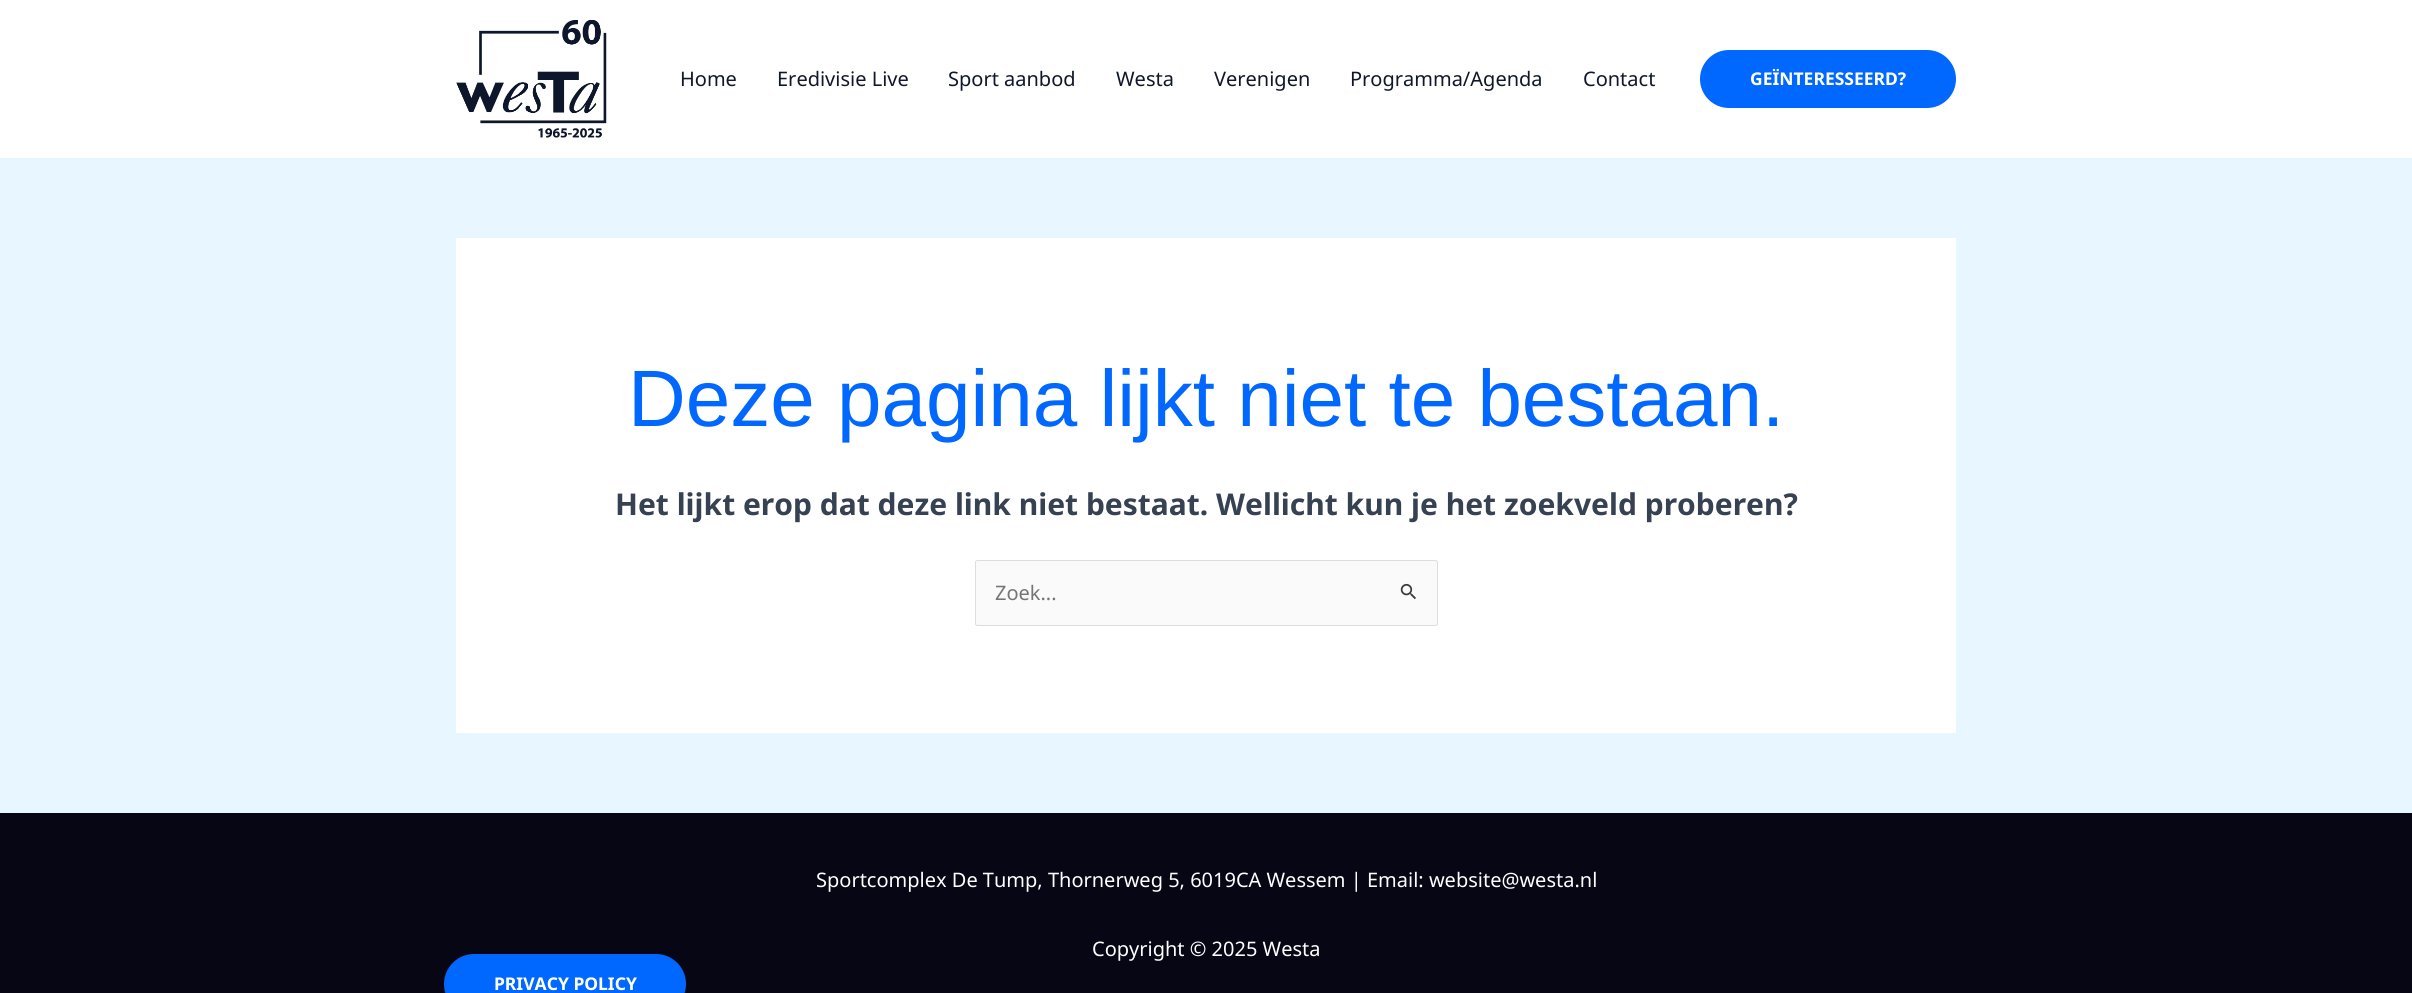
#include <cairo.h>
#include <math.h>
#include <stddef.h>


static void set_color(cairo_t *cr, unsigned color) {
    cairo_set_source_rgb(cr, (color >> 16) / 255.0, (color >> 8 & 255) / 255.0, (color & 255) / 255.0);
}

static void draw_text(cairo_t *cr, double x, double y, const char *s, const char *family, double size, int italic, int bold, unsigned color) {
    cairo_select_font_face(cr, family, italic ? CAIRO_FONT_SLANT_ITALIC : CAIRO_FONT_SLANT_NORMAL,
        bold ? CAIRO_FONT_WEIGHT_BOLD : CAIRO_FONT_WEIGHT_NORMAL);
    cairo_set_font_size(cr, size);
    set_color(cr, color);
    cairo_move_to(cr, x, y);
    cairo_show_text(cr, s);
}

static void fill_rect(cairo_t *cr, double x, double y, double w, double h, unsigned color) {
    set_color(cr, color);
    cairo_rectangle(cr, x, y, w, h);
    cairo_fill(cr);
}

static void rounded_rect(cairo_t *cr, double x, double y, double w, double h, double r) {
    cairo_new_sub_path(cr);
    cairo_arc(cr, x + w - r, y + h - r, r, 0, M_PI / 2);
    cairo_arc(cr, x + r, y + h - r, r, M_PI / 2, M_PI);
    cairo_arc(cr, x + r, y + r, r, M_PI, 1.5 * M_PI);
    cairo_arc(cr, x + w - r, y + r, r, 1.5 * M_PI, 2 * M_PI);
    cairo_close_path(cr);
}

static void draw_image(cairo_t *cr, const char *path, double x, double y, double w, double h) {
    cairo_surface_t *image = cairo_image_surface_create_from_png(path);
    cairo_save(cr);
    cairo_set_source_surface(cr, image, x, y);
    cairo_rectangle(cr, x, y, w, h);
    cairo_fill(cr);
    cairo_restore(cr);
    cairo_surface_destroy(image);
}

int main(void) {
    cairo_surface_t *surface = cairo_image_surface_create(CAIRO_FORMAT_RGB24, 2412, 993);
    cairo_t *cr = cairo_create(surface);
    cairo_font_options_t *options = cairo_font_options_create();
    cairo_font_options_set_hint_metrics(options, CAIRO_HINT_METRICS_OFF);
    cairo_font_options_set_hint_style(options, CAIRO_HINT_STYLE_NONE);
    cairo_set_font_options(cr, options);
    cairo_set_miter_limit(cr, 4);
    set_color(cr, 0xE7F6FF);
    cairo_paint(cr);
    fill_rect(cr, 0, 0, 2412, 158, 0xFFFFFF);
    draw_image(cr, "assets/img1.png", 456, 20, 151, 118);
    draw_text(cr, 680, 86, "Home", "Noto Sans", 20, 0, 0, 0x0F172A);
    draw_text(cr, 777, 86, "Eredivisie Live", "Noto Sans", 20, 0, 0, 0x0F172A);
    draw_text(cr, 948, 86, "Sport aanbod", "Noto Sans", 20, 0, 0, 0x0F172A);
    draw_text(cr, 1116, 86, "Westa", "Noto Sans", 20, 0, 0, 0x0F172A);
    draw_text(cr, 1214, 86, "Verenigen", "Noto Sans", 20, 0, 0, 0x0F172A);
    draw_text(cr, 1350, 86, "Programma/Agenda", "Noto Sans", 20, 0, 0, 0x0F172A);
    draw_text(cr, 1583, 86, "Contact", "Noto Sans", 20, 0, 0, 0x0F172A);
    set_color(cr, 0x0067FF);
    rounded_rect(cr, 1700, 50, 256, 58, 29);
    cairo_fill(cr);
    draw_text(cr, 1750, 85, "GEÏNTERESSEERD?", "Noto Sans", 17.5, 0, 1, 0xFFFFFF);
    fill_rect(cr, 456, 238, 1500, 495, 0xFFFFFF);
    draw_text(cr, 628, 426, "Deze pagina lijkt niet te bestaan.", "Liberation Sans", 80, 0, 0, 0x0067FF);
    draw_text(cr, 615, 515, "Het lijkt erop dat deze link niet bestaat. Wellicht kun je het zoekveld proberen?", "Noto Sans", 30, 0, 1, 0x364151);
    set_color(cr, 0xFAFAFA);
    rounded_rect(cr, 975.5, 560.5, 462, 65, 2);
    cairo_fill_preserve(cr);
    set_color(cr, 0xDDDDDD);
    cairo_set_line_width(cr, 1);
    cairo_stroke(cr);
    draw_text(cr, 995, 600, "Zoek...", "Noto Sans", 20, 0, 0, 0x757575);
    draw_image(cr, "assets/img2.png", 1400, 583, 16, 17);
    fill_rect(cr, 0, 813, 2412, 180, 0x070614);
    draw_text(cr, 816, 887, "Sportcomplex De Tump, Thornerweg 5, 6019CA Wessem | Email: website@westa.nl", "Noto Sans", 20, 0, 0, 0xFFFFFF);
    draw_text(cr, 1092, 956, "Copyright © 2025 Westa", "Noto Sans", 20, 0, 0, 0xFFFFFF);
    set_color(cr, 0x0067FF);
    rounded_rect(cr, 444, 954, 242, 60, 30);
    cairo_fill(cr);
    draw_text(cr, 494, 990, "PRIVACY POLICY", "Noto Sans", 17.5, 0, 1, 0xFFFFFF);
    cairo_surface_write_to_png(surface, "output.png");
    cairo_font_options_destroy(options);
    cairo_destroy(cr);
    cairo_surface_destroy(surface);
    return 0;
}
